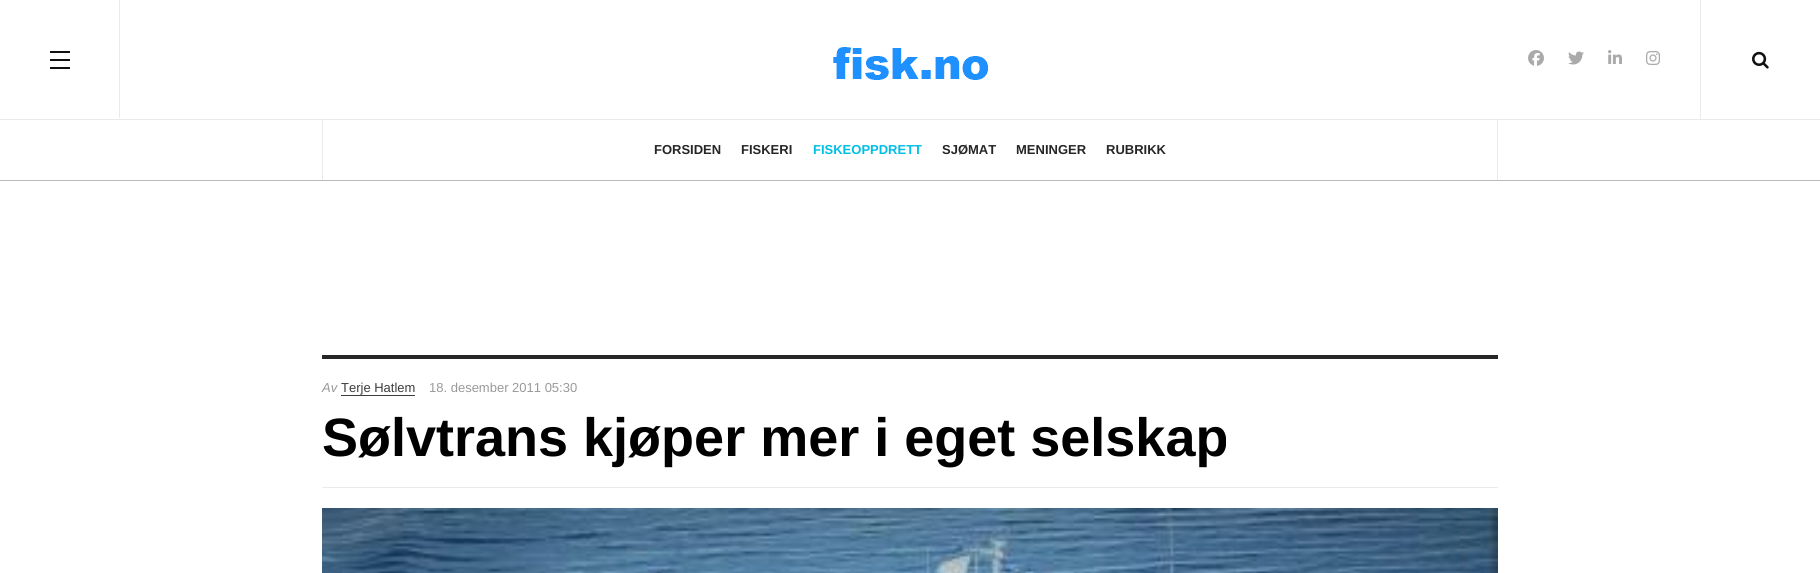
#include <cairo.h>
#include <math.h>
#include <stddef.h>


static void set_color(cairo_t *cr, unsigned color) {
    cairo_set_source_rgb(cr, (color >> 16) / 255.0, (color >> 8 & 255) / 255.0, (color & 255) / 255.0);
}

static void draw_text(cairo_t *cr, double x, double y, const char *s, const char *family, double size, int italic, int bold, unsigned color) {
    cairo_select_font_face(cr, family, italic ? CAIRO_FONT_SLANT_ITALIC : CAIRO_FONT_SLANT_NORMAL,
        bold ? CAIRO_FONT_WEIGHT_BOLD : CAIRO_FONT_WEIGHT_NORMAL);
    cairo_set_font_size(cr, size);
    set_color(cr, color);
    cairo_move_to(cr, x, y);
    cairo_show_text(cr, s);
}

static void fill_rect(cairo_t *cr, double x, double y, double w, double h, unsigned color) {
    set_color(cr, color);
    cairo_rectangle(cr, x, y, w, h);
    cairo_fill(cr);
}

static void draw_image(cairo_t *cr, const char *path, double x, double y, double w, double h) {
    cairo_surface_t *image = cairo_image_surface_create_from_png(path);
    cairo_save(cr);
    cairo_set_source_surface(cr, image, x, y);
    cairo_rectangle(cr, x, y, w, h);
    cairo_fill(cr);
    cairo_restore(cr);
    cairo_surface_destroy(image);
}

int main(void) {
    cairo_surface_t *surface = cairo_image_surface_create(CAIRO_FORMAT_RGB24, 1820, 573);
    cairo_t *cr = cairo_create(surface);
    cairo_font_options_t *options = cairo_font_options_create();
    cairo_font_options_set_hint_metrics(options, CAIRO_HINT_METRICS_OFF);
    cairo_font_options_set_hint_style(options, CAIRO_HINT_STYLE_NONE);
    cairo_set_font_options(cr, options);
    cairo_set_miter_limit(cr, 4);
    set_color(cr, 0xFFFFFF);
    cairo_paint(cr);
    fill_rect(cr, 0, 119, 1820, 1, 0xEAEAEA);
    fill_rect(cr, 119, 0, 1, 118, 0xEAEAEA);
    fill_rect(cr, 50, 59, 20, 2, 0x111111);
    fill_rect(cr, 50, 51, 20, 2, 0x111111);
    fill_rect(cr, 50, 67, 20, 2, 0x111111);
    draw_image(cr, "assets/img1.png", 833, 47, 155, 33);
    draw_image(cr, "assets/img2.png", 1528, 50, 16, 16);
    draw_image(cr, "assets/img3.png", 1568, 51, 16, 14);
    draw_image(cr, "assets/img4.png", 1608, 50, 14, 14);
    draw_image(cr, "assets/img5.png", 1646, 51, 14, 14);
    fill_rect(cr, 1700, 0, 1, 119, 0xEAEAEA);
    draw_image(cr, "assets/img6.png", 1752, 51, 17, 18);
    fill_rect(cr, 0, 180, 1820, 1, 0xB9B9B9);
    fill_rect(cr, 1497, 120, 1, 60, 0xEAEAEA);
    fill_rect(cr, 322, 120, 1, 60, 0xEAEAEA);
    draw_text(cr, 654, 154, "FORSIDEN", "Liberation Sans", 13, 0, 1, 0x262626);
    draw_text(cr, 741, 154, "FISKERI", "Liberation Sans", 13, 0, 1, 0x262626);
    draw_text(cr, 813, 154, "FISKEOPPDRETT", "Liberation Sans", 13, 0, 1, 0x00BFE6);
    draw_text(cr, 942, 154, "SJØMAT", "Liberation Sans", 13, 0, 1, 0x262626);
    draw_text(cr, 1016, 154, "MENINGER", "Liberation Sans", 13, 0, 1, 0x262626);
    draw_text(cr, 1106, 154, "RUBRIKK", "Liberation Sans", 13, 0, 1, 0x262626);
    fill_rect(cr, 322, 355, 1176, 4, 0x262626);
    draw_text(cr, 322, 392, "Av", "Liberation Sans", 13, 1, 0, 0x999999);
    draw_text(cr, 341, 392, "Terje Hatlem", "Liberation Sans", 13, 0, 0, 0x3C3C3C);
    fill_rect(cr, 341, 395, 74, 1, 0x3C3C3C);
    draw_text(cr, 429, 392, "18. desember 2011 05:30", "Liberation Sans", 13, 0, 0, 0x999999);
    fill_rect(cr, 322, 487, 1176, 1, 0xEAEAEA);
    draw_text(cr, 322, 456, "Sølvtrans kjøper mer i eget selskap", "Liberation Sans", 54, 0, 1, 0x000000);
    draw_image(cr, "assets/img7.png", 322, 508, 1176, 65);
    cairo_surface_write_to_png(surface, "output.png");
    cairo_font_options_destroy(options);
    cairo_destroy(cr);
    cairo_surface_destroy(surface);
    return 0;
}
